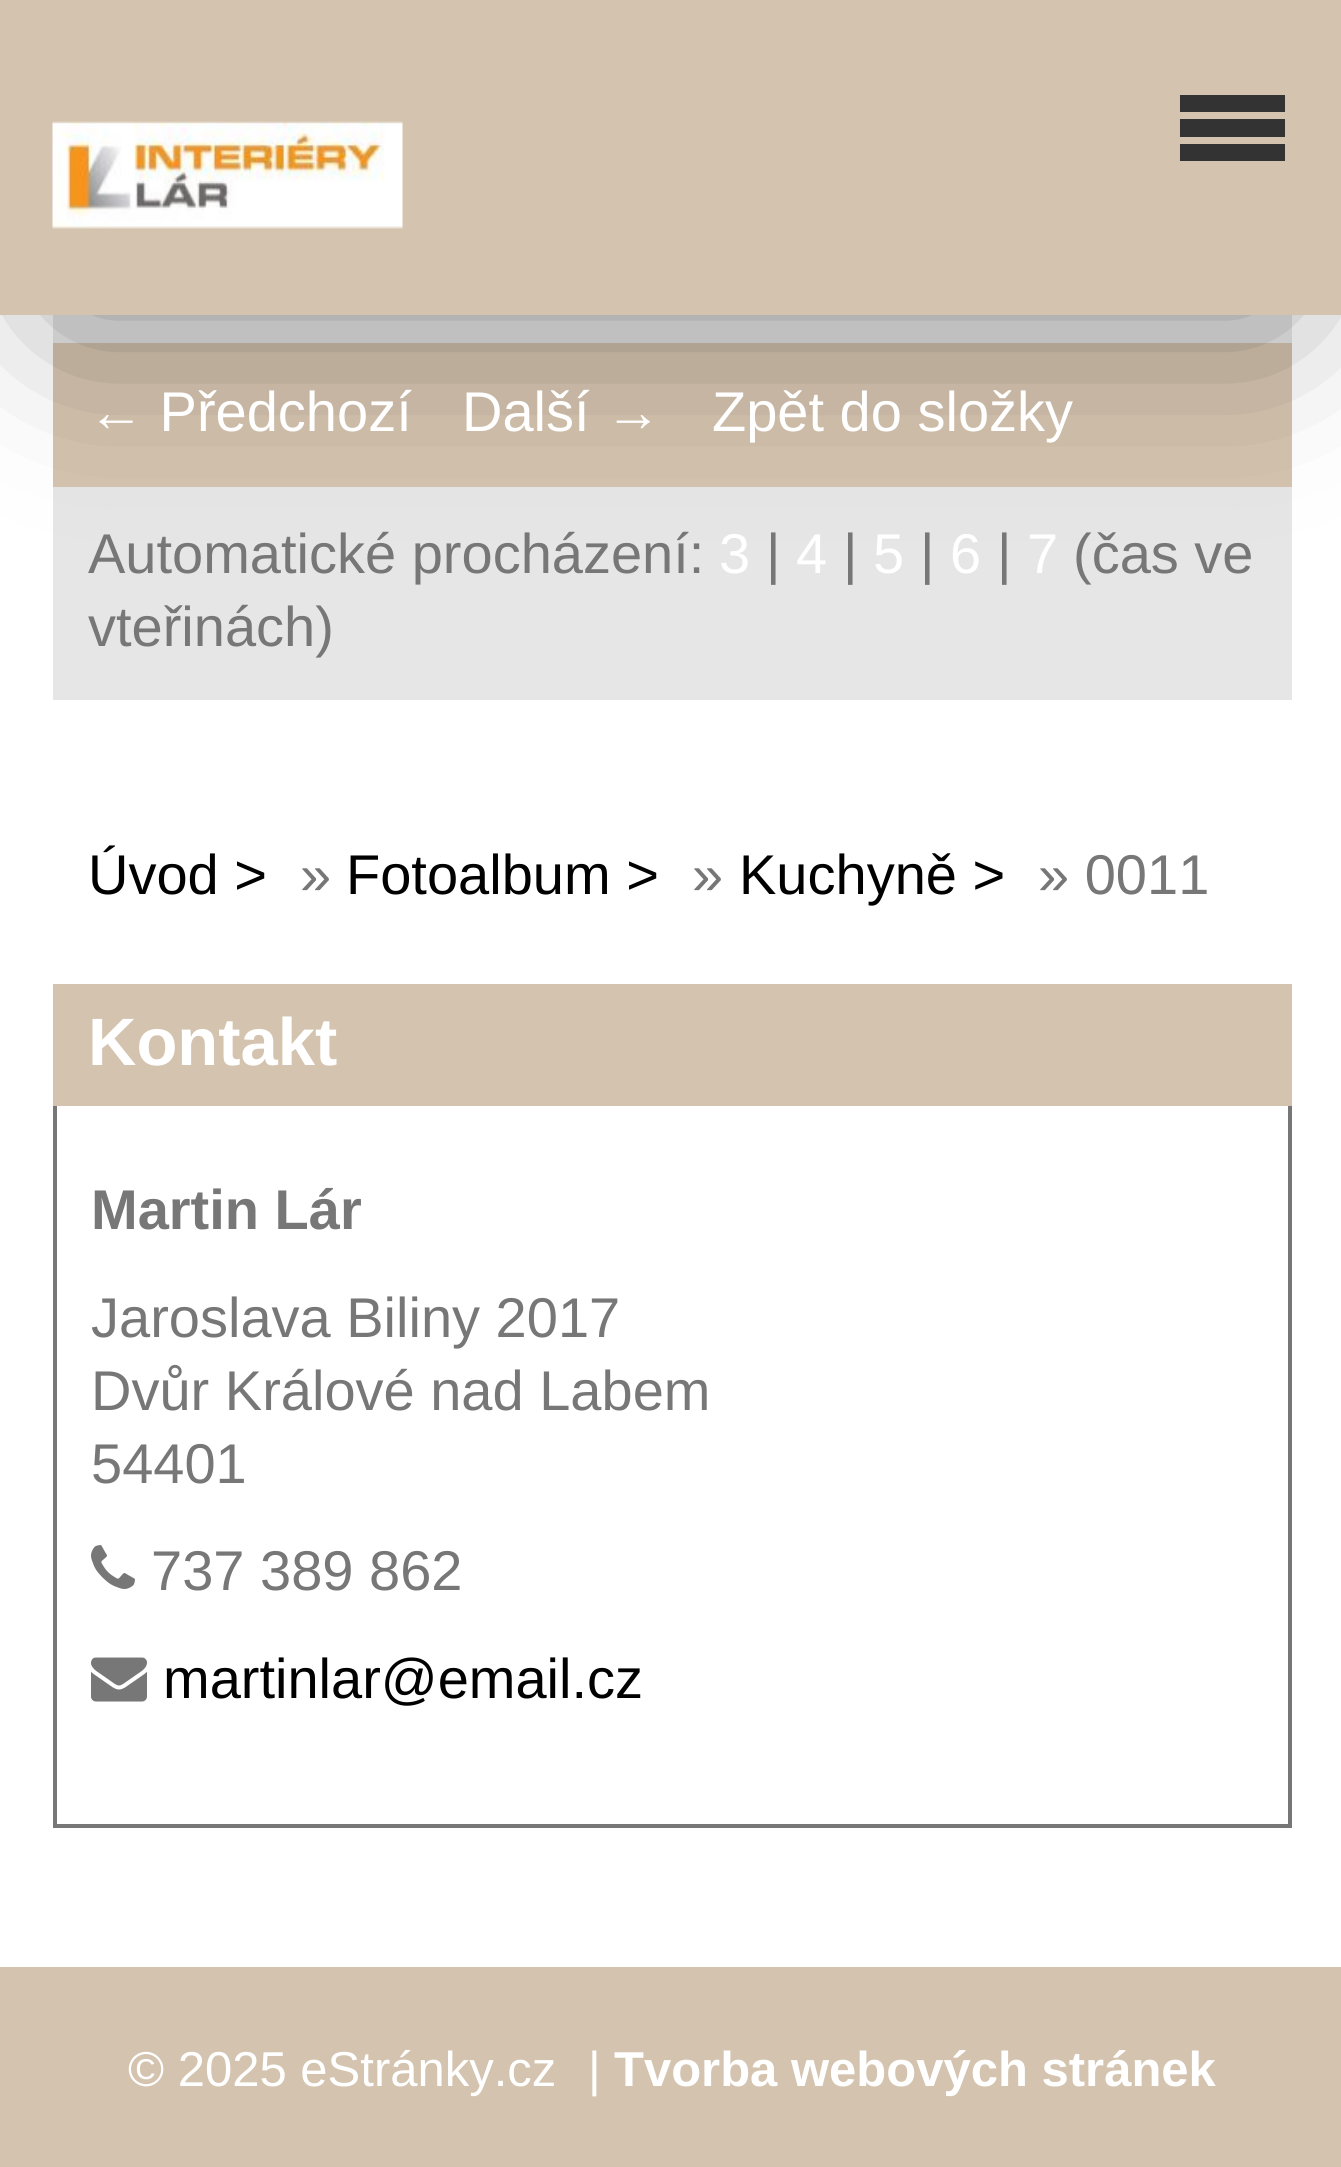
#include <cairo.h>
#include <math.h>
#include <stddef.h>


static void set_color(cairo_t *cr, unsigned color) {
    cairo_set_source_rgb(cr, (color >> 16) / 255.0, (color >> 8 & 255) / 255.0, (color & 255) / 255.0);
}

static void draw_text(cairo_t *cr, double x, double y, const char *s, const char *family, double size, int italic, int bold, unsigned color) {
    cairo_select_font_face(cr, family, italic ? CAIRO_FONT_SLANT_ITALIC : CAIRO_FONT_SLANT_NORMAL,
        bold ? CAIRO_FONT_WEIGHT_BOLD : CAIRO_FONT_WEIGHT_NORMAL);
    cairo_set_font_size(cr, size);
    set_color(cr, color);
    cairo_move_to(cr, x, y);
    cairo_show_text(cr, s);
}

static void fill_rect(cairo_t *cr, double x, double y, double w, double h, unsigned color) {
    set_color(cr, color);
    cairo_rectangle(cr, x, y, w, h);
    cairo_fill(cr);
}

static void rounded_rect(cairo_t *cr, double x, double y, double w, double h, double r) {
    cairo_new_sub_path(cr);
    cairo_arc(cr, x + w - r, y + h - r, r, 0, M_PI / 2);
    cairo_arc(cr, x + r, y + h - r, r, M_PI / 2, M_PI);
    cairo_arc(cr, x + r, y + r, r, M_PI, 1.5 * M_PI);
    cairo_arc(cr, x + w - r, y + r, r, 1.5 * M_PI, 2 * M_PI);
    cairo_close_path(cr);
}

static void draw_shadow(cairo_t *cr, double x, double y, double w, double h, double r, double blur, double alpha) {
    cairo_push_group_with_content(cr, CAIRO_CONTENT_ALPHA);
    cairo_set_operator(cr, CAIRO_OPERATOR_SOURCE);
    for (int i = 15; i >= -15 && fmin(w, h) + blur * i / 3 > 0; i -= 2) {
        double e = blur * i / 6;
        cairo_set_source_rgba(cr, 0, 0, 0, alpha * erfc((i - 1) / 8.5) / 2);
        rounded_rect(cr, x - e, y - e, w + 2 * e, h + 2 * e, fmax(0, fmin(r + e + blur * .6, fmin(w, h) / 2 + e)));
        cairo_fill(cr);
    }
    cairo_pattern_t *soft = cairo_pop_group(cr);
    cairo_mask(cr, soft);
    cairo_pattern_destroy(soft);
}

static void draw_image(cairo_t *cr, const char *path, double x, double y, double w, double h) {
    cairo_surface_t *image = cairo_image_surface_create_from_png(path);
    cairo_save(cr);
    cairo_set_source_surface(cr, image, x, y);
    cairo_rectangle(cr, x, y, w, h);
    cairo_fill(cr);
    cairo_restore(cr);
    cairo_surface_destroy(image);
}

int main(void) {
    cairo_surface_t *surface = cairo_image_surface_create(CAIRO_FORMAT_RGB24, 1341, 2167);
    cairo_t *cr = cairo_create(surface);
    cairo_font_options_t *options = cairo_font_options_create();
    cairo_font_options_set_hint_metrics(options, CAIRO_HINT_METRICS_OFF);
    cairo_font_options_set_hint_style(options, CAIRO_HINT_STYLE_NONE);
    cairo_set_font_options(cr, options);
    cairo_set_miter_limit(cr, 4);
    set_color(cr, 0xFFFFFF);
    cairo_paint(cr);
    fill_rect(cr, 53, 315, 1239, 28, 0xE6E6E6);
    fill_rect(cr, 53, 343, 1239, 144, 0xD4C3AE);
    fill_rect(cr, 53, 487, 1239, 213, 0xE6E6E6);
    set_color(cr, 0x000000);
    draw_shadow(cr, 63, 116, 1218, 189, 0, 94.5, 0.45);
    fill_rect(cr, 0, 0, 1341, 315, 0xD4C3AE);
    draw_image(cr, "assets/img1.png", 52, 121, 351, 108);
    fill_rect(cr, 1180, 95, 105, 17, 0x333333);
    fill_rect(cr, 1180, 119, 105, 18, 0x333333);
    fill_rect(cr, 1180, 144, 105, 17, 0x333333);
    draw_text(cr, 88, 431, "← Předchozí", "Liberation Sans", 56, 0, 0, 0xFFFFFF);
    draw_text(cr, 462, 431, "Další →", "Liberation Sans", 56, 0, 0, 0xFFFFFF);
    draw_text(cr, 712, 431, "Zpět do složky", "Liberation Sans", 56, 0, 0, 0xFFFFFF);
    draw_text(cr, 88, 573, "Automatické procházení:", "Liberation Sans", 56, 0, 0, 0x777777);
    draw_text(cr, 719, 573, "3", "Liberation Sans", 56, 0, 0, 0xFFFFFF);
    draw_text(cr, 766, 573, "|", "Liberation Sans", 56, 0, 0, 0x777777);
    draw_text(cr, 796, 573, "4", "Liberation Sans", 56, 0, 0, 0xFFFFFF);
    draw_text(cr, 843, 573, "|", "Liberation Sans", 56, 0, 0, 0x777777);
    draw_text(cr, 873, 573, "5", "Liberation Sans", 56, 0, 0, 0xFFFFFF);
    draw_text(cr, 920, 573, "|", "Liberation Sans", 56, 0, 0, 0x777777);
    draw_text(cr, 950, 573, "6", "Liberation Sans", 56, 0, 0, 0xFFFFFF);
    draw_text(cr, 997, 573, "|", "Liberation Sans", 56, 0, 0, 0x777777);
    draw_text(cr, 1027, 573, "7", "Liberation Sans", 56, 0, 0, 0xFFFFFF);
    draw_text(cr, 1073, 573, "(čas ve", "Liberation Sans", 56, 0, 0, 0x777777);
    draw_text(cr, 88, 646, "vteřinách)", "Liberation Sans", 56, 0, 0, 0x777777);
    draw_text(cr, 88, 894, "Úvod >", "Liberation Sans", 56, 0, 0, 0x000000);
    draw_text(cr, 300, 894, "»", "Liberation Sans", 56, 0, 0, 0x777777);
    draw_text(cr, 346, 894, "Fotoalbum >", "Liberation Sans", 56, 0, 0, 0x000000);
    draw_text(cr, 692, 894, "»", "Liberation Sans", 56, 0, 0, 0x777777);
    draw_text(cr, 739, 894, "Kuchyně >", "Liberation Sans", 56, 0, 0, 0x000000);
    draw_text(cr, 1038, 894, "» 0011", "Liberation Sans", 56, 0, 0, 0x777777);
    fill_rect(cr, 53, 984, 1239, 122, 0xD4C3AE);
    draw_text(cr, 88, 1065, "Kontakt", "Liberation Sans", 67, 0, 1, 0xFFFFFF);
    fill_rect(cr, 1288, 1106, 4, 721, 0x777777);
    fill_rect(cr, 53, 1824, 1239, 4, 0x777777);
    fill_rect(cr, 53, 1106, 4, 721, 0x777777);
    draw_text(cr, 91, 1229, "Martin Lár", "Liberation Sans", 56, 0, 1, 0x777777);
    draw_text(cr, 91, 1337, "Jaroslava Biliny 2017", "Liberation Sans", 56, 0, 0, 0x777777);
    draw_text(cr, 91, 1410, "Dvůr Králové nad Labem", "Liberation Sans", 56, 0, 0, 0x777777);
    draw_text(cr, 91, 1483, "54401", "Liberation Sans", 56, 0, 0, 0x777777);
    draw_image(cr, "assets/img2.png", 91, 1545, 44, 44);
    draw_text(cr, 151, 1590, "737 389 862", "Liberation Sans", 56, 0, 0, 0x777777);
    draw_image(cr, "assets/img3.png", 91, 1657, 56, 45);
    draw_text(cr, 163, 1698, "martinlar@email.cz", "Liberation Sans", 56, 0, 0, 0x000000);
    fill_rect(cr, 0, 1967, 1341, 200, 0xD4C3AE);
    draw_text(cr, 128, 2086, "© 2025 eStránky.cz", "Liberation Sans", 49, 0, 0, 0xFFFFFF);
    draw_text(cr, 588, 2086, "|", "Liberation Sans", 49, 0, 0, 0xFFFFFF);
    draw_text(cr, 614, 2086, "Tvorba webových stránek", "Liberation Sans", 49, 0, 1, 0xFFFFFF);
    cairo_surface_write_to_png(surface, "output.png");
    cairo_font_options_destroy(options);
    cairo_destroy(cr);
    cairo_surface_destroy(surface);
    return 0;
}
